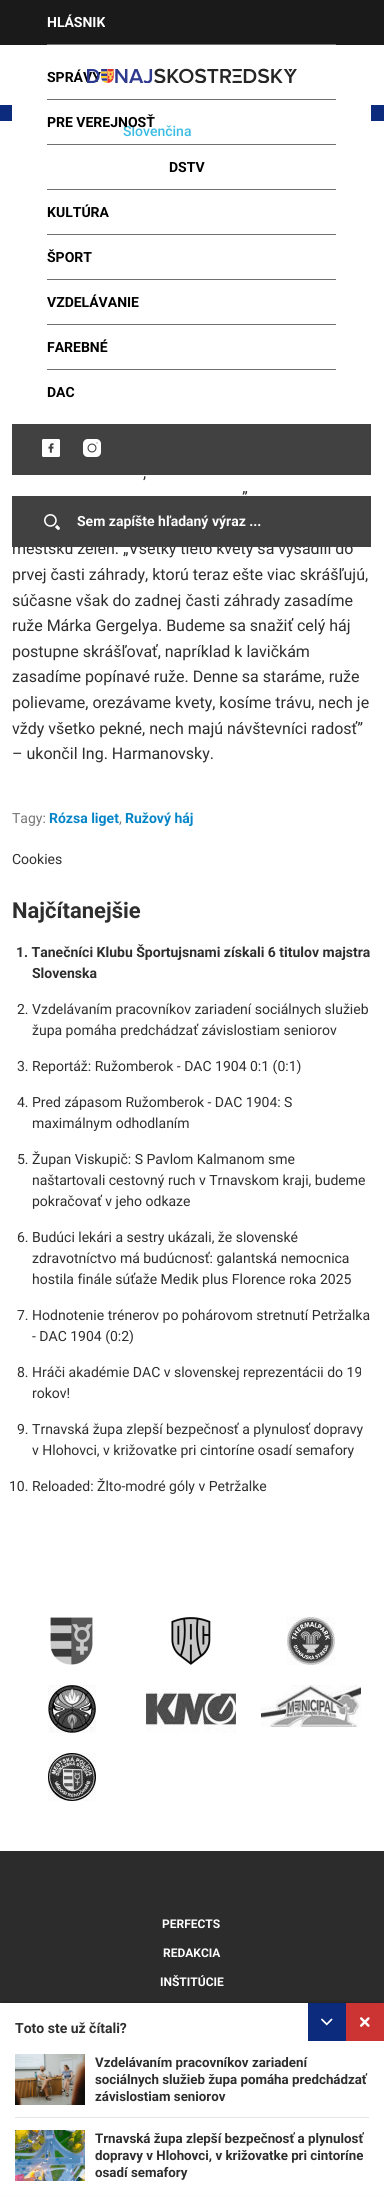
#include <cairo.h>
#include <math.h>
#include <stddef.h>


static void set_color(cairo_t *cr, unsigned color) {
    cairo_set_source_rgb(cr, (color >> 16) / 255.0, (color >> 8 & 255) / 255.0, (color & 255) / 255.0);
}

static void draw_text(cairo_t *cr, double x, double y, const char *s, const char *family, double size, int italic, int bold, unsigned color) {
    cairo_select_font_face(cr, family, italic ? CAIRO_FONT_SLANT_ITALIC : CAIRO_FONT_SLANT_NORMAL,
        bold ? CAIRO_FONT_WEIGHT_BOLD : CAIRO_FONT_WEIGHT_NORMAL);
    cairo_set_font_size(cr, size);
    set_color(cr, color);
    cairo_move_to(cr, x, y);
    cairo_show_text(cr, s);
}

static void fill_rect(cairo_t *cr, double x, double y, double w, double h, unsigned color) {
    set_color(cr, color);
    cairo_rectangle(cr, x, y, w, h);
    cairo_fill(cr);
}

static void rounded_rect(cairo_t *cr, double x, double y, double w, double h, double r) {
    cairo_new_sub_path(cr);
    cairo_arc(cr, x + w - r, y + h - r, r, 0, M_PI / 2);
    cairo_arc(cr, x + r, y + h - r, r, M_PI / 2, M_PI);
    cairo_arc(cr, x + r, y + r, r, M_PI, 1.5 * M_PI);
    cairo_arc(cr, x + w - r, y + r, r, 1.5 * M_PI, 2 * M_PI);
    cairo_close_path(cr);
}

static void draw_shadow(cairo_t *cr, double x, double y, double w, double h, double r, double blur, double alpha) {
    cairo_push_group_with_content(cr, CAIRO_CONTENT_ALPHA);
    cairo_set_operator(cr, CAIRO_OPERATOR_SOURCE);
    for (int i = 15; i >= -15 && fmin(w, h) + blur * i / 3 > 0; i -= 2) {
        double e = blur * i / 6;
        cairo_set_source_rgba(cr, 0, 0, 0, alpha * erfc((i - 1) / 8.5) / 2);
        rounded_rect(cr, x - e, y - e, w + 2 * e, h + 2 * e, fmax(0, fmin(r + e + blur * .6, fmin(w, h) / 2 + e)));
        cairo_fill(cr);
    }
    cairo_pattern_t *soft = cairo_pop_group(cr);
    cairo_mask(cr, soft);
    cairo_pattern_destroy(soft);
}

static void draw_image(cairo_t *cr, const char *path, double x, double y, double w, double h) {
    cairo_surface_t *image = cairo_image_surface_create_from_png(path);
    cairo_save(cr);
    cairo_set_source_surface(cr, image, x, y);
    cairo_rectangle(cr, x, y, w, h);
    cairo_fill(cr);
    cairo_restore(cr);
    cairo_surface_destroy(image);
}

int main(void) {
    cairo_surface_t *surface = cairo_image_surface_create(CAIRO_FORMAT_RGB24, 384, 2196);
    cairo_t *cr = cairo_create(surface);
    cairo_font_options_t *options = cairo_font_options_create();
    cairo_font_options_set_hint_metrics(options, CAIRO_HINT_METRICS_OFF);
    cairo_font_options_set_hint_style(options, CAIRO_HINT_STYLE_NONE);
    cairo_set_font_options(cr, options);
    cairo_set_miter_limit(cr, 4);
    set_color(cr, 0xFFFFFF);
    cairo_paint(cr);
    fill_rect(cr, 0, 0, 384, 45, 0x1A1A1A);
    fill_rect(cr, 47, 44, 289, 1, 0x707070);
    draw_text(cr, 47, 27, "HLÁSNIK", "Roboto", 14, 0, 1, 0xFFFFFF);
    draw_text(cr, 123, 136, "Slovenčina", "Roboto Medium", 14, 0, 0, 0x3DBDE3);
    draw_text(cr, 47, 82, "SPRÁVY", "Roboto", 14, 0, 1, 0x000000);
    draw_image(cr, "assets/img1.png", 87, 68, 210, 15);
    fill_rect(cr, 0, 105, 384, 16, 0x0C2B7D);
    fill_rect(cr, 12, 105, 359, 16, 0xFFFFFF);
    fill_rect(cr, 47, 99, 289, 1, 0x707070);
    fill_rect(cr, 47, 144, 289, 1, 0x707070);
    draw_text(cr, 47, 127, "PRE VEREJNOSŤ", "Roboto", 14, 0, 1, 0x000000);
    fill_rect(cr, 47, 189, 289, 1, 0x707070);
    draw_text(cr, 169, 172, "DSTV", "Roboto", 14, 0, 1, 0x000000);
    fill_rect(cr, 47, 234, 289, 1, 0x707070);
    draw_text(cr, 47, 217, "KULTÚRA", "Roboto", 14, 0, 1, 0x000000);
    fill_rect(cr, 47, 279, 289, 1, 0x707070);
    draw_text(cr, 47, 262, "ŠPORT", "Roboto", 14, 0, 1, 0x000000);
    fill_rect(cr, 47, 324, 289, 1, 0x707070);
    draw_text(cr, 47, 307, "VZDELÁVANIE", "Roboto", 14, 0, 1, 0x000000);
    fill_rect(cr, 47, 369, 289, 1, 0x707070);
    draw_text(cr, 47, 352, "FAREBNÉ", "Roboto", 14, 0, 1, 0x000000);
    draw_text(cr, 47, 397, "DAC", "Roboto", 14, 0, 1, 0x000000);
    fill_rect(cr, 12, 424, 359, 51, 0x414141);
    draw_image(cr, "assets/img2.png", 42, 439, 18, 18);
    draw_image(cr, "assets/img3.png", 83, 439, 18, 18);
    draw_text(cr, 12, 554, "mestskú zeleň. „Všetky tieto kvety sa vysadili do", "Roboto", 16, 0, 0, 0x2E2E2E);
    fill_rect(cr, 12, 496, 359, 51, 0x414141);
    draw_image(cr, "assets/img4.png", 44, 514, 16, 16);
    draw_text(cr, 77, 526, "Sem zapíšte hľadaný výraz ...", "Roboto", 14, 0, 1, 0xFFFFFF);
    draw_text(cr, 143, 478, ",", "Roboto", 16, 0, 0, 0x2E2E2E);
    draw_text(cr, 242, 503, "”", "Roboto", 16, 0, 0, 0x2E2E2E);
    draw_text(cr, 12, 580, "prvej časti záhrady, ktorú teraz ešte viac skrášľujú,", "Roboto", 16, 0, 0, 0x2E2E2E);
    draw_text(cr, 12, 606, "súčasne však do zadnej časti záhrady zasadíme", "Roboto", 16, 0, 0, 0x2E2E2E);
    draw_text(cr, 12, 631, "ruže Márka Gergelya. Budeme sa snažiť celý háj", "Roboto", 16, 0, 0, 0x2E2E2E);
    draw_text(cr, 12, 657, "postupne skrášľovať, napríklad k lavičkám", "Roboto", 16, 0, 0, 0x2E2E2E);
    draw_text(cr, 12, 682, "zasadíme popínavé ruže. Denne sa staráme, ruže", "Roboto", 16, 0, 0, 0x2E2E2E);
    draw_text(cr, 12, 708, "polievame, orezávame kvety, kosíme trávu, nech je", "Roboto", 16, 0, 0, 0x2E2E2E);
    draw_text(cr, 12, 734, "vždy všetko pekné, nech majú návštevníci radosť”", "Roboto", 16, 0, 0, 0x2E2E2E);
    draw_text(cr, 12, 759, "– ukončil Ing. Harmanovsky.", "Roboto", 16, 0, 0, 0x2E2E2E);
    draw_text(cr, 12, 823, "Tagy:", "Roboto", 14, 0, 0, 0x777777);
    draw_text(cr, 49, 823, "Rózsa liget", "Roboto", 14, 0, 1, 0x0585C8);
    draw_text(cr, 119, 823, ",", "Roboto", 14, 0, 0, 0x777777);
    draw_text(cr, 125, 823, "Ružový háj", "Roboto", 14, 0, 1, 0x0585C8);
    fill_rect(cr, 0, 1851, 384, 152, 0x2C2C2C);
    set_color(cr, 0x000000);
    draw_shadow(cr, 2, 2003, 380, 189, 0, 1.5, 0.4);
    fill_rect(cr, 0, 2003, 384, 192, 0xFFFFFF);
    draw_text(cr, 15, 2033, "Toto ste už čítali?", "Roboto", 14, 0, 1, 0x2E2E2E);
    fill_rect(cr, 308, 2003, 38, 38, 0x0C2B7D);
    draw_image(cr, "assets/img5.png", 321, 2018, 12, 8);
    fill_rect(cr, 346, 2003, 38, 38, 0xCC3333);
    draw_image(cr, "assets/img6.png", 360, 2017, 10, 10);
    fill_rect(cr, 15, 2117, 354, 1, 0xE5E5E5);
    draw_image(cr, "assets/img7.png", 15, 2054, 70, 51);
    draw_text(cr, 95, 2067, "Vzdelávaním pracovníkov zariadení", "Roboto", 13.3, 0, 1, 0x2E2E2E);
    draw_text(cr, 95, 2084, "sociálnych služieb župa pomáha predchádzať", "Roboto", 13.3, 0, 1, 0x2E2E2E);
    draw_text(cr, 95, 2101, "závislostiam seniorov", "Roboto", 13.3, 0, 1, 0x2E2E2E);
    draw_image(cr, "assets/img8.png", 15, 2130, 70, 51);
    draw_text(cr, 95, 2143, "Trnavská župa zlepší bezpečnosť a plynulosť", "Roboto", 13.3, 0, 1, 0x2E2E2E);
    draw_text(cr, 95, 2160, "dopravy v Hlohovci, v križovatke pri cintoríne", "Roboto", 13.3, 0, 1, 0x2E2E2E);
    draw_text(cr, 95, 2177, "osadí semafory", "Roboto", 13.3, 0, 1, 0x2E2E2E);
    draw_text(cr, 12, 864, "Cookies", "Roboto", 14, 0, 0, 0x2E2E2E);
    draw_text(cr, 12, 918, "Najčítanejšie", "Roboto", 22, 0, 1, 0x2E2E2E);
    draw_text(cr, 16, 957, "1. Tanečníci Klubu Športujsnami získali 6 titulov majstra", "Roboto", 14, 0, 1, 0x2E2E2E);
    draw_text(cr, 32, 978, "Slovenska", "Roboto", 14, 0, 1, 0x2E2E2E);
    draw_text(cr, 17, 1014, "2. Vzdelávaním pracovníkov zariadení sociálnych služieb", "Roboto", 14, 0, 0, 0x2E2E2E);
    draw_text(cr, 32, 1035, "župa pomáha predchádzať závislostiam seniorov", "Roboto", 14, 0, 0, 0x2E2E2E);
    draw_text(cr, 17, 1071, "3. Reportáž: Ružomberok - DAC 1904 0:1 (0:1)", "Roboto", 14, 0, 0, 0x2E2E2E);
    draw_text(cr, 17, 1107, "4. Pred zápasom Ružomberok - DAC 1904: S", "Roboto", 14, 0, 0, 0x2E2E2E);
    draw_text(cr, 32, 1128, "maximálnym odhodlaním", "Roboto", 14, 0, 0, 0x2E2E2E);
    draw_text(cr, 17, 1164, "5. Župan Viskupič: S Pavlom Kalmanom sme", "Roboto", 14, 0, 0, 0x2E2E2E);
    draw_text(cr, 32, 1185, "naštartovali cestovný ruch v Trnavskom kraji, budeme", "Roboto", 14, 0, 0, 0x2E2E2E);
    draw_text(cr, 32, 1206, "pokračovať v jeho odkaze", "Roboto", 14, 0, 0, 0x2E2E2E);
    draw_text(cr, 17, 1242, "6. Budúci lekári a sestry ukázali, že slovenské", "Roboto", 14, 0, 0, 0x2E2E2E);
    draw_text(cr, 32, 1263, "zdravotníctvo má budúcnosť: galantská nemocnica", "Roboto", 14, 0, 0, 0x2E2E2E);
    draw_text(cr, 32, 1284, "hostila finále súťaže Medik plus Florence roka 2025", "Roboto", 14, 0, 0, 0x2E2E2E);
    draw_text(cr, 17, 1320, "7. Hodnotenie trénerov po pohárovom stretnutí Petržalka", "Roboto", 14, 0, 0, 0x2E2E2E);
    draw_text(cr, 32, 1341, "- DAC 1904 (0:2)", "Roboto", 14, 0, 0, 0x2E2E2E);
    draw_text(cr, 17, 1377, "8. Hráči akadémie DAC v slovenskej reprezentácii do 19", "Roboto", 14, 0, 0, 0x2E2E2E);
    draw_text(cr, 32, 1398, "rokov!", "Roboto", 14, 0, 0, 0x2E2E2E);
    draw_text(cr, 17, 1434, "9. Trnavská župa zlepší bezpečnosť a plynulosť dopravy", "Roboto", 14, 0, 0, 0x2E2E2E);
    draw_text(cr, 32, 1455, "v Hlohovci, v križovatke pri cintoríne osadí semafory", "Roboto", 14, 0, 0, 0x2E2E2E);
    draw_text(cr, 9, 1491, "10. Reloaded: Žlto-modré góly v Petržalke", "Roboto", 14, 0, 0, 0x2E2E2E);
    draw_image(cr, "assets/img9.png", 50, 1617, 43, 48);
    draw_image(cr, "assets/img10.png", 171, 1617, 40, 48);
    draw_image(cr, "assets/img11.png", 287, 1617, 48, 48);
    draw_image(cr, "assets/img12.png", 48, 1685, 48, 48);
    draw_image(cr, "assets/img13.png", 146, 1689, 90, 44);
    draw_image(cr, "assets/img14.png", 261, 1685, 100, 42);
    draw_image(cr, "assets/img15.png", 48, 1753, 48, 48);
    draw_text(cr, 162, 1928, "PERFECTS", "Roboto", 12, 0, 1, 0xFFFFFF);
    draw_text(cr, 163, 1957, "REDAKCIA", "Roboto", 12, 0, 1, 0xFFFFFF);
    draw_text(cr, 160, 1986, "INŠTITÚCIE", "Roboto", 12, 0, 1, 0xFFFFFF);
    cairo_surface_write_to_png(surface, "output.png");
    cairo_font_options_destroy(options);
    cairo_destroy(cr);
    cairo_surface_destroy(surface);
    return 0;
}
